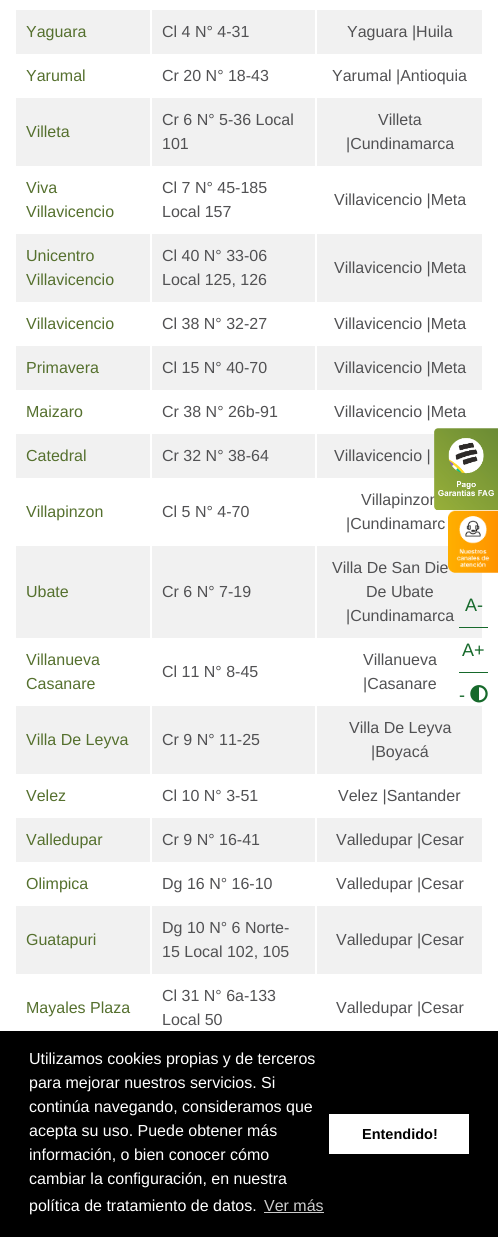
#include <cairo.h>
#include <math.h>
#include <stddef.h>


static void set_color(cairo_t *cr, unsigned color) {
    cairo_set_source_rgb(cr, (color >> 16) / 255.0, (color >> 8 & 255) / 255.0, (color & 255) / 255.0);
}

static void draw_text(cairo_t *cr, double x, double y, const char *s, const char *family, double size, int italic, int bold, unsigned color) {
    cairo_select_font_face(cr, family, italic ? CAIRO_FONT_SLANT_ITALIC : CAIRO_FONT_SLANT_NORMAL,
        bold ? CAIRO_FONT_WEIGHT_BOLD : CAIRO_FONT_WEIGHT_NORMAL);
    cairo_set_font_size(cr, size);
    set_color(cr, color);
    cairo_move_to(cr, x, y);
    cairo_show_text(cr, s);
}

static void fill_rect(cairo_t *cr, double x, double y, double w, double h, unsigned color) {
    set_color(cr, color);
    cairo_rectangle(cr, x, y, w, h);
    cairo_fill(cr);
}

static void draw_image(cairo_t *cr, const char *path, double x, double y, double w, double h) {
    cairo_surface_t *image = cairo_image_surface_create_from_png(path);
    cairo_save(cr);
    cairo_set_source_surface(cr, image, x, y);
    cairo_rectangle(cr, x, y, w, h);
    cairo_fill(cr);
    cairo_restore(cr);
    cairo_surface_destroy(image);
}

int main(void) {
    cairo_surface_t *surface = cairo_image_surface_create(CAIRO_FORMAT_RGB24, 498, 1237);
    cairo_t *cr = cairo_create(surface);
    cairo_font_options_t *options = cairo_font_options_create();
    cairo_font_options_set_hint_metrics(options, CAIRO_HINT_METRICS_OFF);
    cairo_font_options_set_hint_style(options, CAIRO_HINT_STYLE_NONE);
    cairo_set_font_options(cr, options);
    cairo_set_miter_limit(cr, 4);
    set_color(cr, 0xFFFFFF);
    cairo_paint(cr);
    fill_rect(cr, 16, 10, 466, 44, 0xF1F1F1);
    fill_rect(cr, 150, 10, 2, 44, 0xFFFFFF);
    draw_text(cr, 26, 37, "Yaguara", "Liberation Sans", 16, 0, 0, 0x55702E);
    fill_rect(cr, 315, 10, 2, 44, 0xFFFFFF);
    draw_text(cr, 162, 37, "Cl 4 N° 4-31", "Liberation Sans", 16, 0, 0, 0x515153);
    draw_text(cr, 347, 37, "Yaguara |Huila", "Liberation Sans", 16, 0, 0, 0x515153);
    draw_text(cr, 26, 81, "Yarumal", "Liberation Sans", 16, 0, 0, 0x55702E);
    draw_text(cr, 162, 81, "Cr 20 N° 18-43", "Liberation Sans", 16, 0, 0, 0x515153);
    draw_text(cr, 332, 81, "Yarumal |Antioquia", "Liberation Sans", 16, 0, 0, 0x515153);
    fill_rect(cr, 16, 98, 466, 68, 0xF1F1F1);
    fill_rect(cr, 150, 98, 2, 68, 0xFFFFFF);
    draw_text(cr, 26, 137, "Villeta", "Liberation Sans", 16, 0, 0, 0x55702E);
    fill_rect(cr, 315, 98, 2, 68, 0xFFFFFF);
    draw_text(cr, 162, 125, "Cr 6 N° 5-36 Local", "Liberation Sans", 16, 0, 0, 0x515153);
    draw_text(cr, 162, 149, "101", "Liberation Sans", 16, 0, 0, 0x515153);
    draw_text(cr, 378, 125, "Villeta", "Liberation Sans", 16, 0, 0, 0x515153);
    draw_text(cr, 346, 149, "|Cundinamarca", "Liberation Sans", 16, 0, 0, 0x515153);
    draw_text(cr, 26, 193, "Viva", "Liberation Sans", 16, 0, 0, 0x55702E);
    draw_text(cr, 26, 217, "Villavicencio", "Liberation Sans", 16, 0, 0, 0x55702E);
    draw_text(cr, 162, 193, "Cl 7 N° 45-185", "Liberation Sans", 16, 0, 0, 0x515153);
    draw_text(cr, 162, 217, "Local 157", "Liberation Sans", 16, 0, 0, 0x515153);
    draw_text(cr, 334, 205, "Villavicencio |Meta", "Liberation Sans", 16, 0, 0, 0x515153);
    fill_rect(cr, 16, 234, 466, 68, 0xF1F1F1);
    fill_rect(cr, 150, 234, 2, 68, 0xFFFFFF);
    draw_text(cr, 26, 261, "Unicentro", "Liberation Sans", 16, 0, 0, 0x55702E);
    draw_text(cr, 26, 285, "Villavicencio", "Liberation Sans", 16, 0, 0, 0x55702E);
    fill_rect(cr, 315, 234, 2, 68, 0xFFFFFF);
    draw_text(cr, 162, 261, "Cl 40 N° 33-06", "Liberation Sans", 16, 0, 0, 0x515153);
    draw_text(cr, 162, 285, "Local 125, 126", "Liberation Sans", 16, 0, 0, 0x515153);
    draw_text(cr, 334, 273, "Villavicencio |Meta", "Liberation Sans", 16, 0, 0, 0x515153);
    draw_text(cr, 26, 329, "Villavicencio", "Liberation Sans", 16, 0, 0, 0x55702E);
    draw_text(cr, 162, 329, "Cl 38 N° 32-27", "Liberation Sans", 16, 0, 0, 0x515153);
    draw_text(cr, 334, 329, "Villavicencio |Meta", "Liberation Sans", 16, 0, 0, 0x515153);
    fill_rect(cr, 16, 346, 466, 44, 0xF1F1F1);
    fill_rect(cr, 150, 346, 2, 44, 0xFFFFFF);
    draw_text(cr, 26, 373, "Primavera", "Liberation Sans", 16, 0, 0, 0x55702E);
    fill_rect(cr, 315, 346, 2, 44, 0xFFFFFF);
    draw_text(cr, 162, 373, "Cl 15 N° 40-70", "Liberation Sans", 16, 0, 0, 0x515153);
    draw_text(cr, 334, 373, "Villavicencio |Meta", "Liberation Sans", 16, 0, 0, 0x515153);
    draw_text(cr, 26, 417, "Maizaro", "Liberation Sans", 16, 0, 0, 0x55702E);
    draw_text(cr, 162, 417, "Cr 38 N° 26b-91", "Liberation Sans", 16, 0, 0, 0x515153);
    draw_text(cr, 334, 417, "Villavicencio |Meta", "Liberation Sans", 16, 0, 0, 0x515153);
    fill_rect(cr, 16, 434, 419, 44, 0xF1F1F1);
    fill_rect(cr, 150, 434, 2, 44, 0xFFFFFF);
    draw_text(cr, 26, 461, "Catedral", "Liberation Sans", 16, 0, 0, 0x55702E);
    fill_rect(cr, 315, 434, 2, 44, 0xFFFFFF);
    draw_text(cr, 162, 461, "Cr 32 N° 38-64", "Liberation Sans", 16, 0, 0, 0x515153);
    draw_text(cr, 334, 461, "Villavicencio |", "Liberation Sans", 16, 0, 0, 0x515153);
    draw_text(cr, 26, 517, "Villapinzon", "Liberation Sans", 16, 0, 0, 0x55702E);
    draw_text(cr, 162, 517, "Cl 5 N° 4-70", "Liberation Sans", 16, 0, 0, 0x515153);
    draw_text(cr, 361, 505, "Villapinzon", "Liberation Sans", 16, 0, 0, 0x515153);
    draw_text(cr, 346, 529, "|Cundinamarc", "Liberation Sans", 16, 0, 0, 0x515153);
    fill_rect(cr, 16, 546, 466, 92, 0xF1F1F1);
    fill_rect(cr, 150, 546, 2, 92, 0xFFFFFF);
    draw_text(cr, 26, 597, "Ubate", "Liberation Sans", 16, 0, 0, 0x55702E);
    fill_rect(cr, 315, 546, 2, 92, 0xFFFFFF);
    draw_text(cr, 162, 597, "Cr 6 N° 7-19", "Liberation Sans", 16, 0, 0, 0x515153);
    draw_text(cr, 332, 573, "Villa De San Die", "Liberation Sans", 16, 0, 0, 0x515153);
    draw_text(cr, 366, 597, "De Ubate", "Liberation Sans", 16, 0, 0, 0x515153);
    draw_text(cr, 346, 621, "|Cundinamarca", "Liberation Sans", 16, 0, 0, 0x515153);
    draw_text(cr, 26, 665, "Villanueva", "Liberation Sans", 16, 0, 0, 0x55702E);
    draw_text(cr, 26, 689, "Casanare", "Liberation Sans", 16, 0, 0, 0x55702E);
    draw_text(cr, 162, 677, "Cl 11 N° 8-45", "Liberation Sans", 16, 0, 0, 0x515153);
    draw_text(cr, 363, 665, "Villanueva", "Liberation Sans", 16, 0, 0, 0x515153);
    draw_text(cr, 363, 689, "|Casanare", "Liberation Sans", 16, 0, 0, 0x515153);
    fill_rect(cr, 16, 706, 466, 68, 0xF1F1F1);
    fill_rect(cr, 150, 706, 2, 68, 0xFFFFFF);
    draw_text(cr, 26, 745, "Villa De Leyva", "Liberation Sans", 16, 0, 0, 0x55702E);
    fill_rect(cr, 315, 706, 2, 68, 0xFFFFFF);
    draw_text(cr, 162, 745, "Cr 9 N° 11-25", "Liberation Sans", 16, 0, 0, 0x515153);
    draw_text(cr, 349, 733, "Villa De Leyva", "Liberation Sans", 16, 0, 0, 0x515153);
    draw_text(cr, 371, 757, "|Boyacá", "Liberation Sans", 16, 0, 0, 0x515153);
    draw_text(cr, 26, 801, "Velez", "Liberation Sans", 16, 0, 0, 0x55702E);
    draw_text(cr, 162, 801, "Cl 10 N° 3-51", "Liberation Sans", 16, 0, 0, 0x515153);
    draw_text(cr, 338, 801, "Velez |Santander", "Liberation Sans", 16, 0, 0, 0x515153);
    fill_rect(cr, 16, 818, 466, 44, 0xF1F1F1);
    fill_rect(cr, 150, 818, 2, 44, 0xFFFFFF);
    draw_text(cr, 26, 845, "Valledupar", "Liberation Sans", 16, 0, 0, 0x55702E);
    fill_rect(cr, 315, 818, 2, 44, 0xFFFFFF);
    draw_text(cr, 162, 845, "Cr 9 N° 16-41", "Liberation Sans", 16, 0, 0, 0x515153);
    draw_text(cr, 336, 845, "Valledupar |Cesar", "Liberation Sans", 16, 0, 0, 0x515153);
    draw_text(cr, 26, 889, "Olimpica", "Liberation Sans", 16, 0, 0, 0x55702E);
    draw_text(cr, 162, 889, "Dg 16 N° 16-10", "Liberation Sans", 16, 0, 0, 0x515153);
    draw_text(cr, 336, 889, "Valledupar |Cesar", "Liberation Sans", 16, 0, 0, 0x515153);
    fill_rect(cr, 16, 906, 466, 68, 0xF1F1F1);
    fill_rect(cr, 150, 906, 2, 68, 0xFFFFFF);
    draw_text(cr, 26, 945, "Guatapuri", "Liberation Sans", 16, 0, 0, 0x55702E);
    fill_rect(cr, 315, 906, 2, 68, 0xFFFFFF);
    draw_text(cr, 162, 933, "Dg 10 N° 6 Norte-", "Liberation Sans", 16, 0, 0, 0x515153);
    draw_text(cr, 162, 957, "15 Local 102, 105", "Liberation Sans", 16, 0, 0, 0x515153);
    draw_text(cr, 336, 945, "Valledupar |Cesar", "Liberation Sans", 16, 0, 0, 0x515153);
    draw_text(cr, 26, 1013, "Mayales Plaza", "Liberation Sans", 16, 0, 0, 0x55702E);
    draw_text(cr, 162, 1001, "Cl 31 N° 6a-133", "Liberation Sans", 16, 0, 0, 0x515153);
    draw_text(cr, 162, 1025, "Local 50", "Liberation Sans", 16, 0, 0, 0x515153);
    draw_text(cr, 336, 1013, "Valledupar |Cesar", "Liberation Sans", 16, 0, 0, 0x515153);
    draw_image(cr, "assets/img1.png", 434, 428, 64, 82);
    draw_image(cr, "assets/img2.png", 448, 510, 50, 63);
    draw_text(cr, 465, 611, "A-", "Liberation Sans", 18, 0, 0, 0x16692B);
    fill_rect(cr, 459, 627, 29, 1, 0x16692B);
    draw_text(cr, 462, 656, "A+", "Liberation Sans", 18, 0, 0, 0x16692B);
    fill_rect(cr, 459, 672, 29, 1, 0x16692B);
    draw_text(cr, 459, 701, "-", "Liberation Sans", 18, 0, 0, 0x16692B);
    draw_image(cr, "assets/img3.png", 470, 685, 18, 18);
    fill_rect(cr, 0, 1031, 498, 206, 0x000000);
    draw_text(cr, 29, 1064, "Utilizamos cookies propias y de terceros", "Liberation Sans", 16, 0, 0, 0xFFFFFF);
    draw_text(cr, 29, 1088, "para mejorar nuestros servicios. Si", "Liberation Sans", 16, 0, 0, 0xFFFFFF);
    draw_text(cr, 29, 1112, "continúa navegando, consideramos que", "Liberation Sans", 16, 0, 0, 0xFFFFFF);
    draw_text(cr, 29, 1136, "acepta su uso. Puede obtener más", "Liberation Sans", 16, 0, 0, 0xFFFFFF);
    draw_text(cr, 29, 1160, "información, o bien conocer cómo", "Liberation Sans", 16, 0, 0, 0xFFFFFF);
    draw_text(cr, 29, 1184, "cambiar la configuración, en nuestra", "Liberation Sans", 16, 0, 0, 0xFFFFFF);
    draw_text(cr, 29, 1211, "política de tratamiento de datos.", "Liberation Sans", 16, 0, 0, 0xFFFFFF);
    draw_text(cr, 264, 1211, "Ver más", "Liberation Sans", 16, 0, 0, 0xCCCCCC);
    fill_rect(cr, 264, 1212, 60, 1, 0xCCCCCC);
    fill_rect(cr, 329, 1114, 140, 40, 0xFFFFFF);
    draw_text(cr, 362, 1139, "Entendido!", "Liberation Sans", 14.5, 0, 1, 0x000000);
    cairo_surface_write_to_png(surface, "output.png");
    cairo_font_options_destroy(options);
    cairo_destroy(cr);
    cairo_surface_destroy(surface);
    return 0;
}
